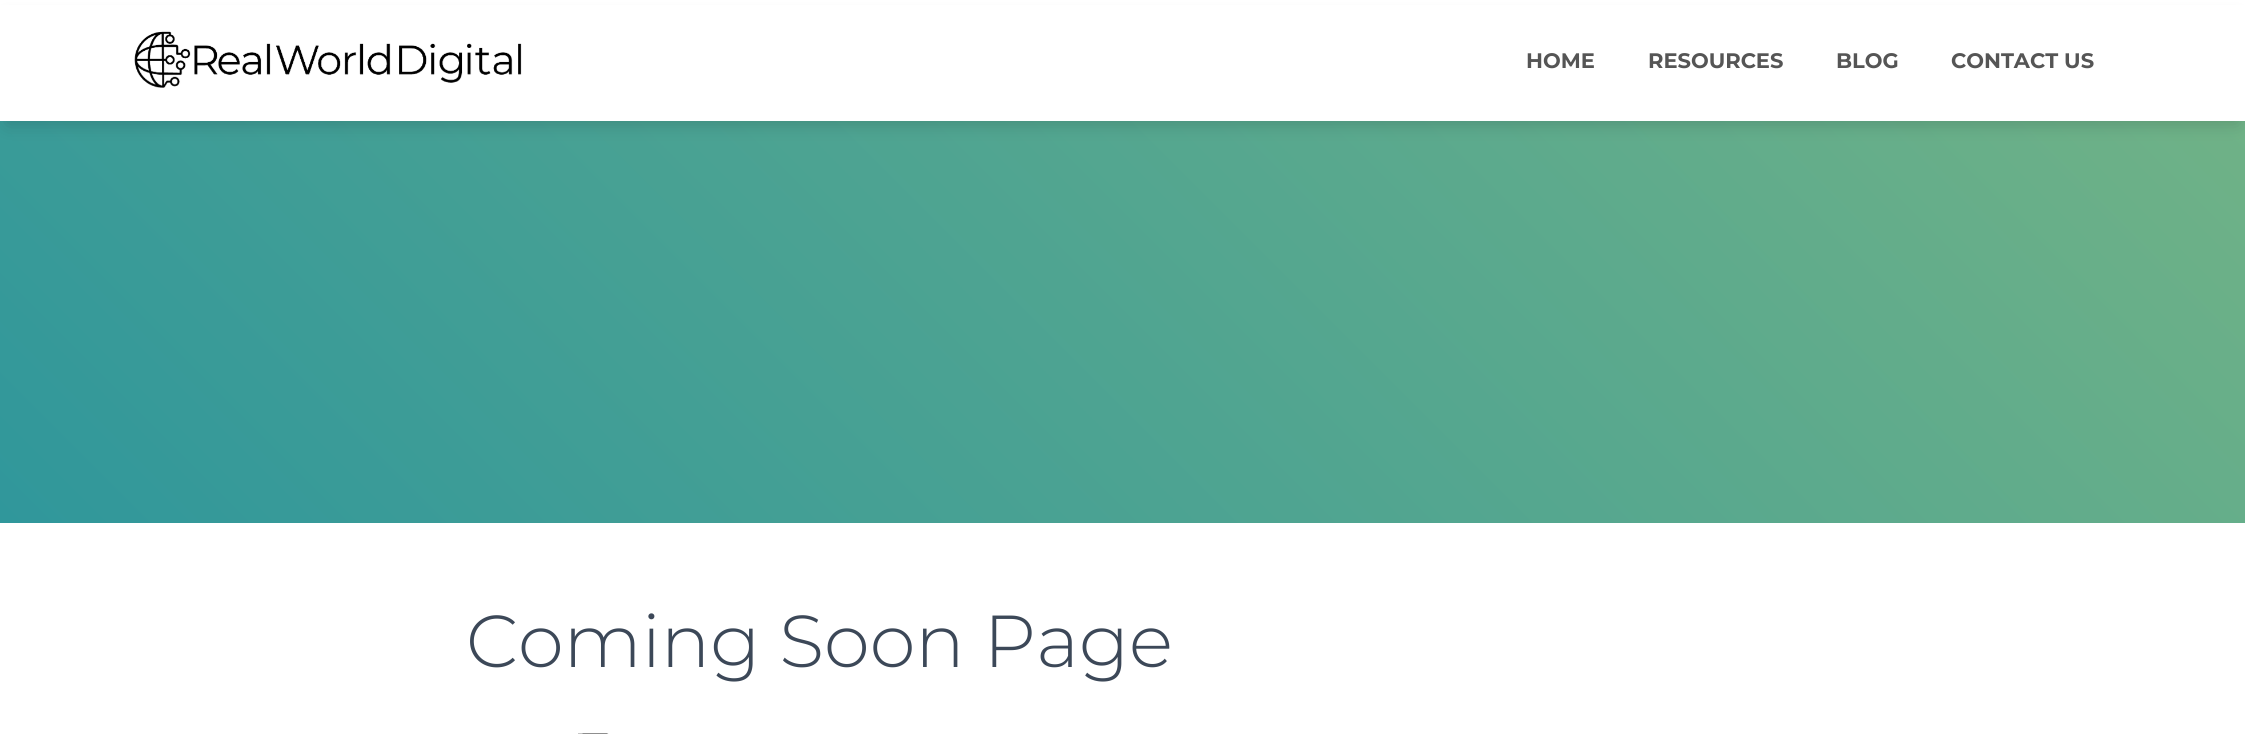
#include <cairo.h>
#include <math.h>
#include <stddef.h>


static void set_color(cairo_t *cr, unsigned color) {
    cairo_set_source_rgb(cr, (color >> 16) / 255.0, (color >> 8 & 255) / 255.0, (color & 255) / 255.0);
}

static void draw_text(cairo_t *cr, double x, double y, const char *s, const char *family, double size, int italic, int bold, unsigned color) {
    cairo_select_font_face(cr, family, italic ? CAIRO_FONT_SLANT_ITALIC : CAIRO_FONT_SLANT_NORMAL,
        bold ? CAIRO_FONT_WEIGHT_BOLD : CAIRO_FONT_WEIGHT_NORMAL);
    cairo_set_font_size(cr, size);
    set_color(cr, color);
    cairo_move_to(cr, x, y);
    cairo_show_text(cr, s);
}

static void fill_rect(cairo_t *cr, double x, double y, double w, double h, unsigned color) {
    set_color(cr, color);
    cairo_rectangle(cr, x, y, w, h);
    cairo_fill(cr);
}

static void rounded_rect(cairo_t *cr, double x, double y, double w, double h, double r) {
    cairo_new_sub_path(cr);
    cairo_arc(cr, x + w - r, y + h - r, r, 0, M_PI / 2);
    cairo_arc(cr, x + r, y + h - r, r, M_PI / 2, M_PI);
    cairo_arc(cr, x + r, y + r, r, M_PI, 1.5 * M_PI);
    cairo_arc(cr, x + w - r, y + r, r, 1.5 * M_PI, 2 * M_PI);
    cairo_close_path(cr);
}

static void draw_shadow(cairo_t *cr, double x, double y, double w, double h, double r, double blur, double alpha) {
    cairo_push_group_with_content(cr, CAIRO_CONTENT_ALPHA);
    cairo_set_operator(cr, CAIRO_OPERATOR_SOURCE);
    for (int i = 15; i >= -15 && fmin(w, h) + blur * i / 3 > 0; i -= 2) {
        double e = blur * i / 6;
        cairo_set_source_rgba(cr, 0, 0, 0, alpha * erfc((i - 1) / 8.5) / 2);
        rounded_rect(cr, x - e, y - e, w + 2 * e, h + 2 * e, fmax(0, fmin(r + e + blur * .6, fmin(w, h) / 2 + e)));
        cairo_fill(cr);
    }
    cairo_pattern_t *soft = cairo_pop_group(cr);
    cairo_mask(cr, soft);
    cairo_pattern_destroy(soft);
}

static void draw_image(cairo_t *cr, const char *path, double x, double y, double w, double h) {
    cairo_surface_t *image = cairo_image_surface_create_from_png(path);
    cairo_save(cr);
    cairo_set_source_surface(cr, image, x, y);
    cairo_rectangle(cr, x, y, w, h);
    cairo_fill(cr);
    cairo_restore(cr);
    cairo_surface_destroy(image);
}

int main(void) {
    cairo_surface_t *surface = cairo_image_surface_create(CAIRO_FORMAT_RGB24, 2245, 734);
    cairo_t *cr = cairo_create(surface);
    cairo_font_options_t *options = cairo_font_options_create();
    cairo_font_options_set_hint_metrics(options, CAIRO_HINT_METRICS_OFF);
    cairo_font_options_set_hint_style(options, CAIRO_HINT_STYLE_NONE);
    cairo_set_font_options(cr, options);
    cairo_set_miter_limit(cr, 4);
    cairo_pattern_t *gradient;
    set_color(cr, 0xFFFFFF);
    cairo_paint(cr);
    gradient = cairo_pattern_create_linear(431, 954, 1815, -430);
    cairo_pattern_add_color_stop_rgba(gradient, 0, 0.188, 0.592, 0.608, 1);
    cairo_pattern_add_color_stop_rgba(gradient, 1, 0.447, 0.702, 0.525, 1);
    cairo_set_source(cr, gradient);
    cairo_pattern_destroy(gradient);
    cairo_rectangle(cr, 0, 121, 2245, 402);
    cairo_fill(cr);
    set_color(cr, 0x000000);
    draw_shadow(cr, 7, 18, 2231, 106, 0, 9, 0.15);
    fill_rect(cr, 0, 5, 2245, 116, 0xFFFFFF);
    draw_image(cr, "assets/img1.png", 134, 31, 388, 57);
    draw_text(cr, 1526, 68, "HOME", "Montserrat", 21, 0, 1, 0x555555);
    draw_text(cr, 1648, 68, "RESOURCES", "Montserrat", 21, 0, 1, 0x555555);
    draw_text(cr, 1836, 68, "BLOG", "Montserrat", 21, 0, 1, 0x555555);
    draw_text(cr, 1951, 68, "CONTACT US", "Montserrat", 21, 0, 1, 0x555555);
    draw_text(cr, 466, 667, "Coming Soon Page", "Montserrat Light", 73.5, 0, 0, 0x3C4858);
    draw_image(cr, "assets/img2.png", 578, 733, 31, 1);
    cairo_surface_write_to_png(surface, "output.png");
    cairo_font_options_destroy(options);
    cairo_destroy(cr);
    cairo_surface_destroy(surface);
    return 0;
}
